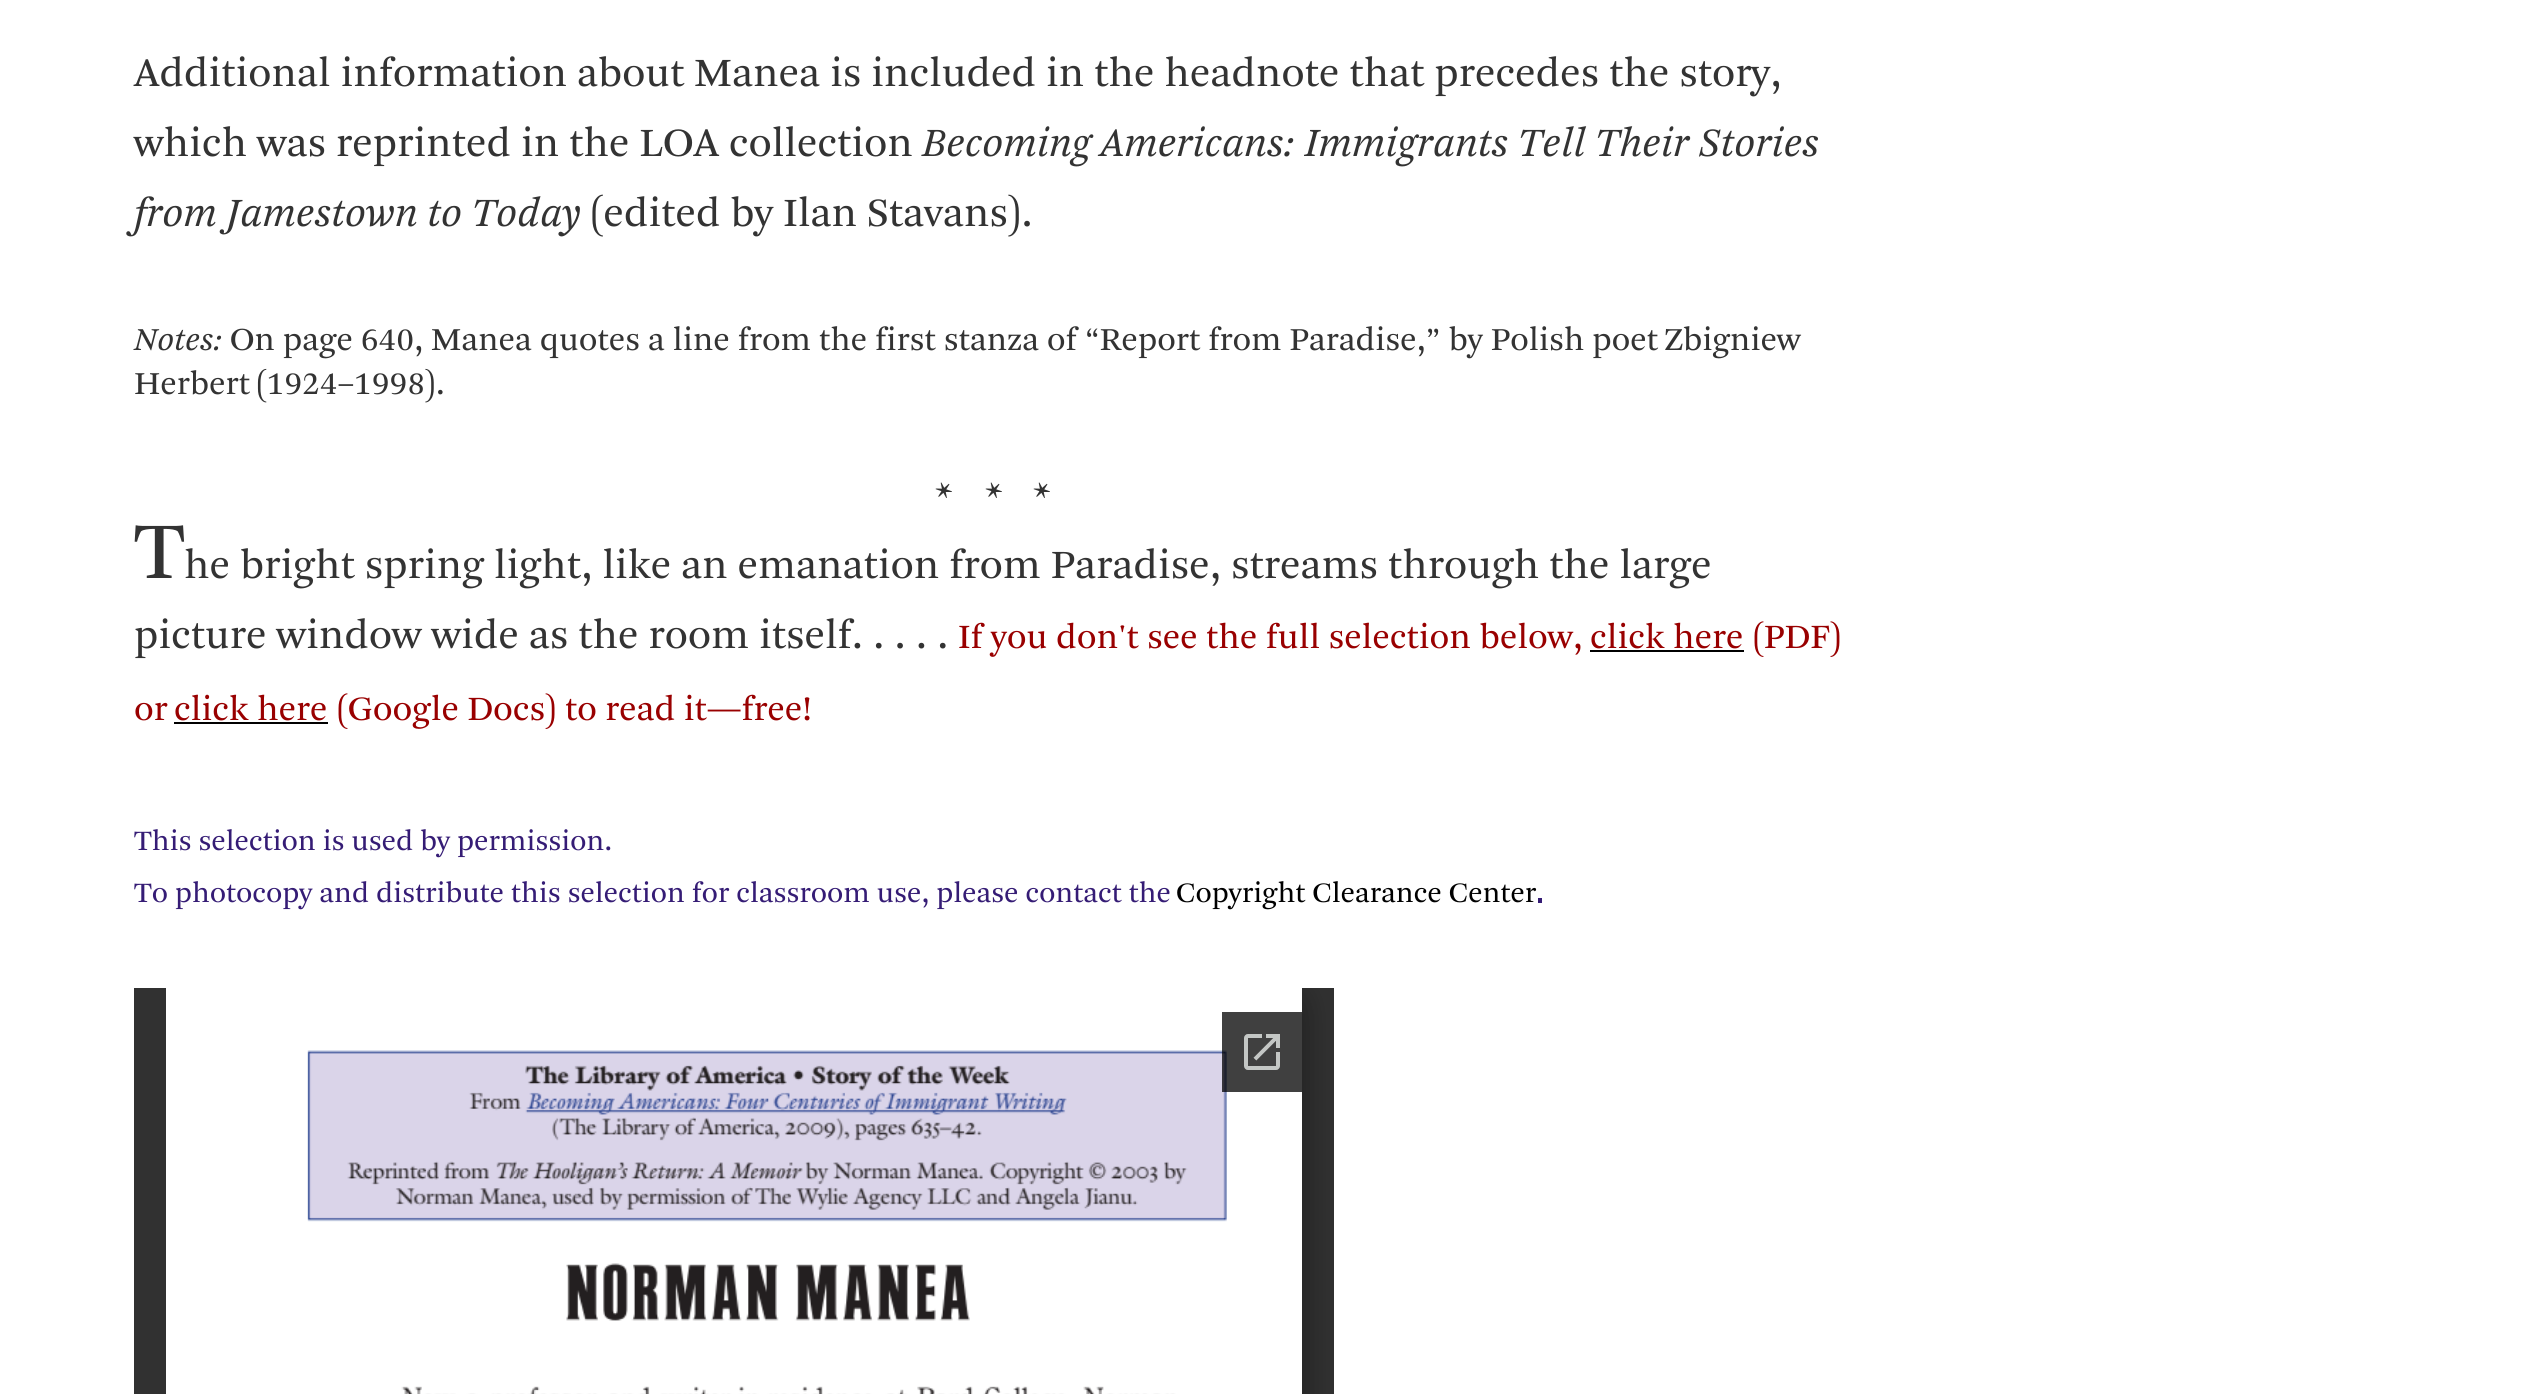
#include <cairo.h>
#include <math.h>
#include <stddef.h>


static void set_color(cairo_t *cr, unsigned color) {
    cairo_set_source_rgb(cr, (color >> 16) / 255.0, (color >> 8 & 255) / 255.0, (color & 255) / 255.0);
}

static void fill_rect(cairo_t *cr, double x, double y, double w, double h, unsigned color) {
    set_color(cr, color);
    cairo_rectangle(cr, x, y, w, h);
    cairo_fill(cr);
}

static void draw_image(cairo_t *cr, const char *path, double x, double y, double w, double h) {
    cairo_surface_t *image = cairo_image_surface_create_from_png(path);
    cairo_save(cr);
    cairo_set_source_surface(cr, image, x, y);
    cairo_rectangle(cr, x, y, w, h);
    cairo_fill(cr);
    cairo_restore(cr);
    cairo_surface_destroy(image);
}

int main(void) {
    cairo_surface_t *surface = cairo_image_surface_create(CAIRO_FORMAT_RGB24, 2545, 1394);
    cairo_t *cr = cairo_create(surface);
    cairo_font_options_t *options = cairo_font_options_create();
    cairo_font_options_set_hint_metrics(options, CAIRO_HINT_METRICS_OFF);
    cairo_font_options_set_hint_style(options, CAIRO_HINT_STYLE_NONE);
    cairo_set_font_options(cr, options);
    cairo_set_miter_limit(cr, 4);
    set_color(cr, 0xFFFFFF);
    cairo_paint(cr);
    draw_image(cr, "assets/img1.png", 133, 56, 1647, 41);
    draw_image(cr, "assets/img2.png", 133, 126, 779, 41);
    draw_image(cr, "assets/img3.png", 921, 126, 897, 41);
    draw_image(cr, "assets/img4.png", 126, 196, 454, 41);
    draw_image(cr, "assets/img5.png", 592, 194, 438, 43);
    draw_image(cr, "assets/img6.png", 133, 329, 89, 22);
    draw_image(cr, "assets/img7.png", 231, 326, 1428, 33);
    draw_image(cr, "assets/img8.png", 1665, 326, 137, 33);
    draw_image(cr, "assets/img9.png", 135, 370, 115, 25);
    draw_image(cr, "assets/img10.png", 257, 368, 186, 35);
    draw_image(cr, "assets/img11.png", 935, 482, 17, 16);
    draw_image(cr, "assets/img11.png", 985, 482, 17, 16);
    draw_image(cr, "assets/img11.png", 1033, 482, 17, 16);
    draw_image(cr, "assets/img12.png", 134, 525, 51, 53);
    draw_image(cr, "assets/img13.png", 185, 548, 1525, 41);
    draw_image(cr, "assets/img14.png", 135, 618, 811, 41);
    draw_image(cr, "assets/img15.png", 959, 622, 622, 35);
    draw_image(cr, "assets/img16.png", 1591, 622, 151, 27);
    draw_image(cr, "assets/img17.png", 1754, 621, 86, 36);
    fill_rect(cr, 1590, 650, 154, 2, 0x000000);
    draw_image(cr, "assets/img18.png", 135, 702, 33, 19);
    draw_image(cr, "assets/img16.png", 175, 694, 151, 27);
    draw_image(cr, "assets/img19.png", 338, 693, 472, 36);
    fill_rect(cr, 174, 722, 154, 2, 0x000000);
    draw_image(cr, "assets/img20.png", 134, 829, 477, 29);
    draw_image(cr, "assets/img21.png", 134, 881, 1036, 29);
    draw_image(cr, "assets/img22.png", 1177, 881, 360, 29);
    fill_rect(cr, 1538, 898, 4, 5, 0x351C75);
    draw_image(cr, "assets/img23.png", 134, 988, 1200, 406);
    cairo_surface_write_to_png(surface, "output.png");
    cairo_font_options_destroy(options);
    cairo_destroy(cr);
    cairo_surface_destroy(surface);
    return 0;
}
